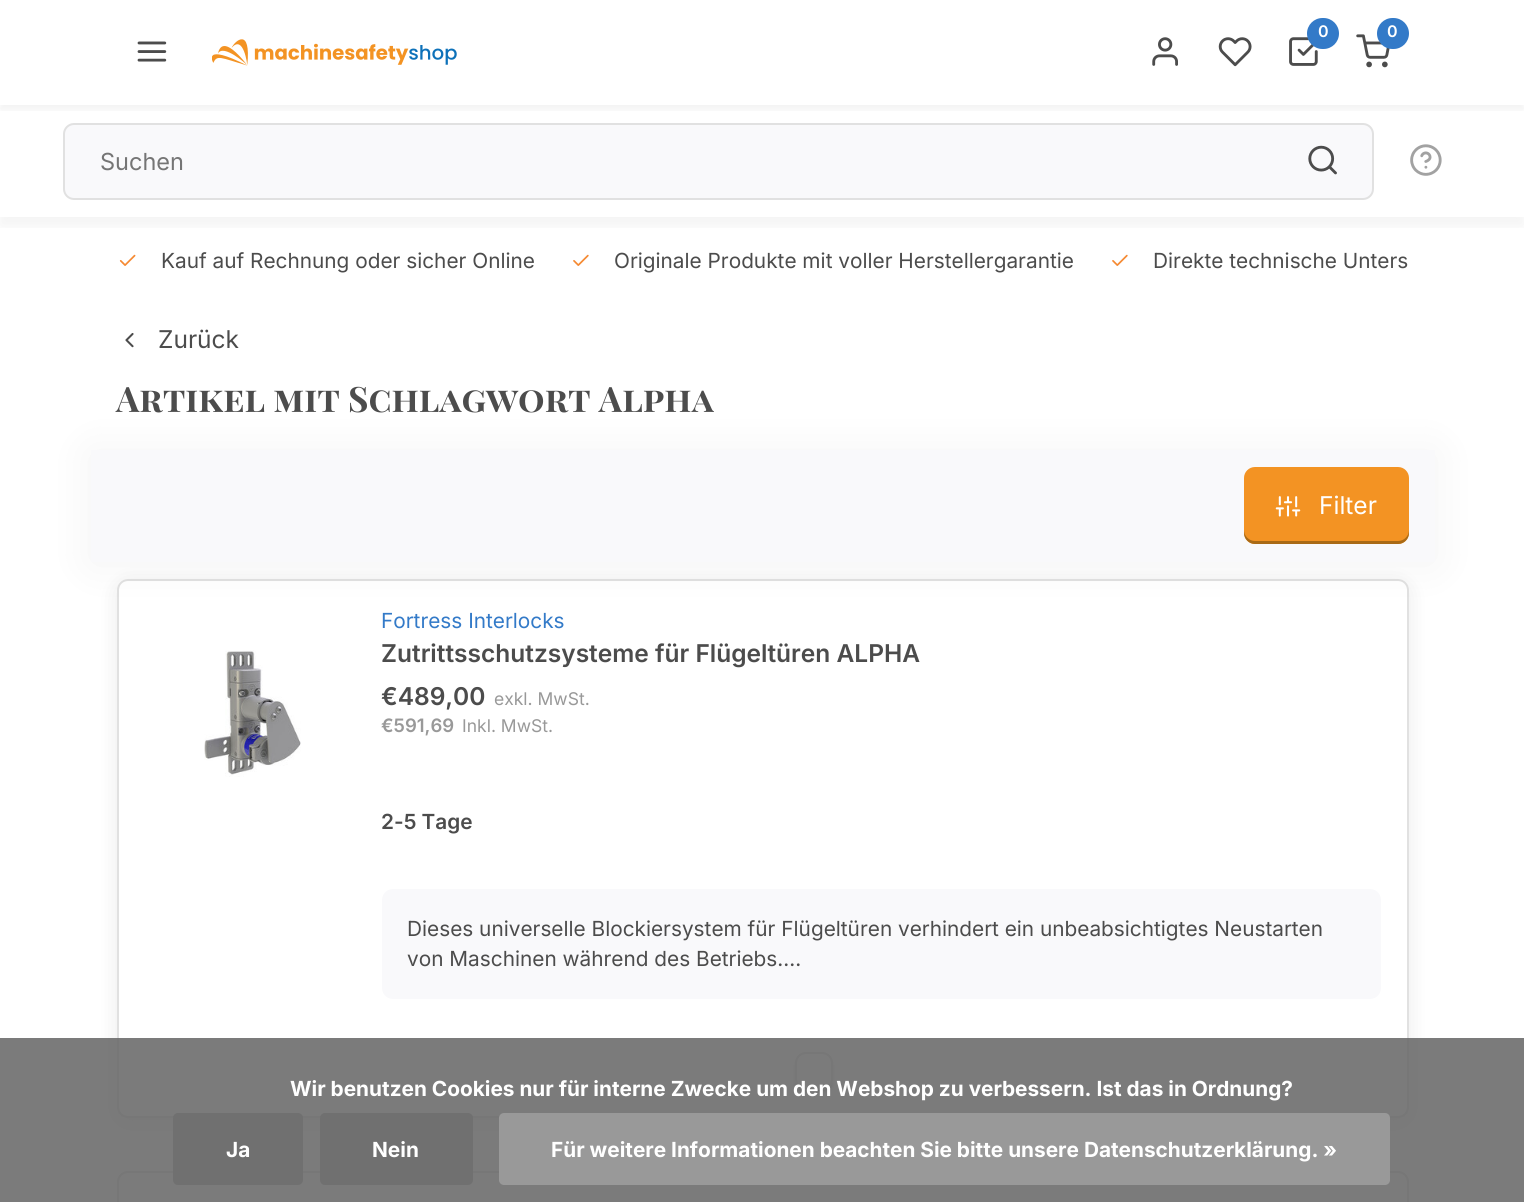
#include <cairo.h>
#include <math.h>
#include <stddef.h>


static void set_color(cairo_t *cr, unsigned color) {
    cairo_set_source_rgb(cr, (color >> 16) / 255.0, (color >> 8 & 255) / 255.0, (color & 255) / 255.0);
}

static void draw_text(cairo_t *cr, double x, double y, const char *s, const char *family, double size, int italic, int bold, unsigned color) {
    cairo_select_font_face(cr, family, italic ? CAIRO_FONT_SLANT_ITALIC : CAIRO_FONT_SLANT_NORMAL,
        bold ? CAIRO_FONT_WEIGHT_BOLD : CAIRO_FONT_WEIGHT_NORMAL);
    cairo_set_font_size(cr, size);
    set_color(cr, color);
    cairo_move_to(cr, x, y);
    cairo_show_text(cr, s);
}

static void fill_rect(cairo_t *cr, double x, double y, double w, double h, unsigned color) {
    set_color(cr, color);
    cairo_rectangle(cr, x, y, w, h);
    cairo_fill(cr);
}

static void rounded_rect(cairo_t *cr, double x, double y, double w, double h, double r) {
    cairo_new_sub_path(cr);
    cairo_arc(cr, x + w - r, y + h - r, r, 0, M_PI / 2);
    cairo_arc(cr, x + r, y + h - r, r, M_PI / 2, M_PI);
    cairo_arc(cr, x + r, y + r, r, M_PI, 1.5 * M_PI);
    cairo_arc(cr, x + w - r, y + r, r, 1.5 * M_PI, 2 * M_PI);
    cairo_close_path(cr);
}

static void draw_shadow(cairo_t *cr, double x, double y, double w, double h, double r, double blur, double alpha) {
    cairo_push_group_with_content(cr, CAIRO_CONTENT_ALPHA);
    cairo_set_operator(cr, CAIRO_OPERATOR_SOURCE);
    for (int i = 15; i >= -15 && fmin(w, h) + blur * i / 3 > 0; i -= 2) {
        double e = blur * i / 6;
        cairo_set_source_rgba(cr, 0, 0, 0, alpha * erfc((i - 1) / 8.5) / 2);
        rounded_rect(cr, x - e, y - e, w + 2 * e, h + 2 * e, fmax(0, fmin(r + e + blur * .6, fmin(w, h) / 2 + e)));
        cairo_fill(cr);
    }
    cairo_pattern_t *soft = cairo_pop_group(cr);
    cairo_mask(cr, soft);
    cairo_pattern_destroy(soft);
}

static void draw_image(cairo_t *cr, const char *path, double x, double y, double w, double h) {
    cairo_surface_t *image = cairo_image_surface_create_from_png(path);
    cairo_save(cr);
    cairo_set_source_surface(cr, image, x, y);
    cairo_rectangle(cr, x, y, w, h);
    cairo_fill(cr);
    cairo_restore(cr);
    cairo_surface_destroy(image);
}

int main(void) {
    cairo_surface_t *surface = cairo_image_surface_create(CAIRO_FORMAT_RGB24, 1524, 1202);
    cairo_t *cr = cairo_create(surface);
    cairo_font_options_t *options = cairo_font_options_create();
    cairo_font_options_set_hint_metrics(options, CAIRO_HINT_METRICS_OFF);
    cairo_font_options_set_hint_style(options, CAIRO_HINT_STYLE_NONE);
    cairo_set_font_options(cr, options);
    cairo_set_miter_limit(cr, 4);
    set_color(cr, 0xFFFFFF);
    cairo_paint(cr);
    cairo_save(cr);
    cairo_rectangle(cr, 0, 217, 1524, 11);
    cairo_clip(cr);
    set_color(cr, 0x000000);
    draw_shadow(cr, 0, 9, 1524, 217, 0, 9, 0.05);
    cairo_restore(cr);
    cairo_save(cr);
    cairo_rectangle(cr, 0, 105, 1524, 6);
    cairo_clip(cr);
    set_color(cr, 0x000000);
    draw_shadow(cr, 0, 5, 1524, 105, 0, 3.5, 0.05);
    cairo_restore(cr);
    draw_image(cr, "assets/img1.png", 1289, 37, 29, 29);
    set_color(cr, 0x337AC8);
    rounded_rect(cr, 1307, 18, 32, 31, 15.5);
    cairo_fill(cr);
    draw_text(cr, 1318, 37, "0", "Inter SemiBold", 16, 0, 0, 0xFFFFFF);
    draw_image(cr, "assets/img2.png", 1356, 34, 34, 34);
    set_color(cr, 0x337AC8);
    rounded_rect(cr, 1377, 18, 32, 31, 15.5);
    cairo_fill(cr);
    draw_text(cr, 1387, 37, "0", "Inter SemiBold", 16, 0, 0, 0xFFFFFF);
    draw_image(cr, "assets/img3.png", 1152, 37, 26, 29);
    draw_image(cr, "assets/img4.png", 1218, 37, 34, 30);
    draw_image(cr, "assets/img5.png", 137, 41, 30, 21);
    draw_image(cr, "assets/img6.png", 212, 39, 245, 27);
    set_color(cr, 0xF9F9FB);
    rounded_rect(cr, 64, 124, 1309, 75, 10);
    cairo_fill_preserve(cr);
    set_color(cr, 0xE1E1E1);
    cairo_stroke(cr);
    draw_text(cr, 100, 170, "Suchen", "Inter", 23.5, 0, 0, 0x757575);
    draw_image(cr, "assets/img7.png", 1308, 145, 29, 30);
    draw_image(cr, "assets/img8.png", 1410, 144, 32, 32);
    draw_image(cr, "assets/img9.png", 119, 254, 17, 12);
    draw_text(cr, 161, 268, "Kauf auf Rechnung oder sicher Online", "Inter", 20.8, 0, 0, 0x4C4C4C);
    draw_image(cr, "assets/img10.png", 573, 254, 16, 12);
    draw_text(cr, 614, 268, "Originale Produkte mit voller Herstellergarantie", "Inter", 20.8, 0, 0, 0x4C4C4C);
    draw_image(cr, "assets/img10.png", 1112, 254, 16, 12);
    draw_text(cr, 1153, 268, "Direkte technische Unters", "Inter", 20.8, 0, 0, 0x4C4C4C);
    draw_image(cr, "assets/img11.png", 125, 333, 9, 15);
    draw_text(cr, 158, 348, "Zurück", "Inter", 24.5, 0, 0, 0x4C4C4C);
    draw_text(cr, 116, 412, "Artikel mit Schlagwort Alpha", "Playfair Display SC", 35, 0, 1, 0x4C4C4C);
    cairo_save(cr);
    cairo_set_fill_rule(cr, CAIRO_FILL_RULE_EVEN_ODD);
    cairo_new_path(cr);
    cairo_move_to(cr, 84, 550);
    cairo_line_to(cr, 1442, 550);
    cairo_line_to(cr, 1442, 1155);
    cairo_line_to(cr, 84, 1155);
    cairo_close_path(cr);
    cairo_move_to(cr, 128, 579);
    cairo_line_to(cr, 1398, 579);
    cairo_curve_to(cr, 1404, 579, 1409, 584, 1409, 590);
    cairo_line_to(cr, 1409, 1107);
    cairo_curve_to(cr, 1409, 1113, 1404, 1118, 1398, 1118);
    cairo_line_to(cr, 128, 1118);
    cairo_curve_to(cr, 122, 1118, 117, 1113, 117, 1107);
    cairo_line_to(cr, 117, 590);
    cairo_curve_to(cr, 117, 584, 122, 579, 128, 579);
    cairo_close_path(cr);
    cairo_clip(cr);
    set_color(cr, 0x000000);
    draw_shadow(cr, 117, 583, 1292, 539, 11, 10.5, 0.08);
    cairo_restore(cr);
    rounded_rect(cr, 118, 580, 1290, 537, 10);
    set_color(cr, 0xE1E1E1);
    cairo_stroke(cr);
    set_color(cr, 0x000000);
    draw_shadow(cr, 91, 452, 1344, 112, 0, 22, 0.05);
    fill_rect(cr, 91, 450, 1344, 112, 0xF9F9FB);
    set_color(cr, 0xF39323);
    rounded_rect(cr, 1244, 467, 165, 77, 11);
    cairo_fill(cr);
    set_color(cr, 0xA96A16);
    cairo_new_path(cr);
    cairo_move_to(cr, 1244, 530);
    cairo_line_to(cr, 1244, 533);
    cairo_curve_to(cr, 1244, 539, 1249, 544, 1255, 544);
    cairo_line_to(cr, 1398, 544);
    cairo_curve_to(cr, 1404, 544, 1409, 539, 1409, 533);
    cairo_line_to(cr, 1409, 530);
    cairo_curve_to(cr, 1409, 536, 1404, 541, 1398, 541);
    cairo_line_to(cr, 1255, 541);
    cairo_curve_to(cr, 1249, 541, 1244, 536, 1244, 530);
    cairo_close_path(cr);
    cairo_fill(cr);
    draw_image(cr, "assets/img12.png", 1275, 496, 26, 21);
    draw_text(cr, 1319, 514, "Filter", "Inter", 24.5, 0, 0, 0xFFFFFF);
    draw_image(cr, "assets/img13.png", 204, 650, 97, 127);
    draw_text(cr, 381, 628, "Fortress Interlocks", "Inter", 20.8, 0, 0, 0x337AC8);
    draw_text(cr, 381, 662, "Zutrittsschutzsysteme für Flügeltüren ALPHA", "Inter SemiBold", 24.5, 0, 0, 0x4C4C4C);
    draw_text(cr, 381, 705, "€489,00", "Inter SemiBold", 24.5, 0, 0, 0x4C4C4C);
    draw_text(cr, 494, 705, "exkl. MwSt.", "Inter", 17.5, 0, 0, 0x999999);
    draw_text(cr, 381, 732, "€591,69", "Inter SemiBold", 18.5, 0, 0, 0x999999);
    draw_text(cr, 462, 732, "Inkl. MwSt.", "Inter", 17.5, 0, 0, 0x999999);
    draw_text(cr, 381, 829, "2-5 Tage", "Inter SemiBold", 20.8, 0, 0, 0x4C4C4C);
    set_color(cr, 0xF9F9FB);
    rounded_rect(cr, 382, 889, 999, 110, 11);
    cairo_fill(cr);
    draw_text(cr, 407, 936, "Dieses universelle Blockiersystem für Flügeltüren verhindert ein unbeabsichtigtes Neustarten", "Inter", 20.8, 0, 0, 0x4C4C4C);
    draw_text(cr, 407, 966, "von Maschinen während des Betriebs....", "Inter", 20.8, 0, 0, 0x4C4C4C);
    cairo_save(cr);
    cairo_set_fill_rule(cr, CAIRO_FILL_RULE_EVEN_ODD);
    cairo_new_path(cr);
    cairo_move_to(cr, 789, 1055);
    cairo_line_to(cr, 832, 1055);
    cairo_line_to(cr, 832, 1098);
    cairo_line_to(cr, 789, 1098);
    cairo_close_path(cr);
    cairo_move_to(cr, 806, 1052);
    cairo_line_to(cr, 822, 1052);
    cairo_curve_to(cr, 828, 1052, 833, 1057, 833, 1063);
    cairo_line_to(cr, 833, 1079);
    cairo_curve_to(cr, 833, 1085, 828, 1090, 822, 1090);
    cairo_line_to(cr, 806, 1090);
    cairo_curve_to(cr, 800, 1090, 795, 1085, 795, 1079);
    cairo_line_to(cr, 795, 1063);
    cairo_curve_to(cr, 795, 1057, 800, 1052, 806, 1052);
    cairo_close_path(cr);
    cairo_clip(cr);
    set_color(cr, 0x999999);
    draw_shadow(cr, 798, 1064, 25, 25, 4, 2.5, 1);
    cairo_restore(cr);
    cairo_save(cr);
    cairo_set_fill_rule(cr, CAIRO_FILL_RULE_EVEN_ODD);
    cairo_new_path(cr);
    cairo_move_to(cr, 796, 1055);
    cairo_line_to(cr, 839, 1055);
    cairo_line_to(cr, 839, 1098);
    cairo_line_to(cr, 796, 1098);
    cairo_close_path(cr);
    cairo_move_to(cr, 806, 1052);
    cairo_line_to(cr, 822, 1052);
    cairo_curve_to(cr, 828, 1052, 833, 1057, 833, 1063);
    cairo_line_to(cr, 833, 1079);
    cairo_curve_to(cr, 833, 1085, 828, 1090, 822, 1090);
    cairo_line_to(cr, 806, 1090);
    cairo_curve_to(cr, 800, 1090, 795, 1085, 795, 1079);
    cairo_line_to(cr, 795, 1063);
    cairo_curve_to(cr, 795, 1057, 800, 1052, 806, 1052);
    cairo_close_path(cr);
    cairo_clip(cr);
    set_color(cr, 0x999999);
    draw_shadow(cr, 805, 1064, 25, 25, 4, 2.5, 1);
    cairo_restore(cr);
    cairo_save(cr);
    cairo_set_fill_rule(cr, CAIRO_FILL_RULE_EVEN_ODD);
    cairo_new_path(cr);
    cairo_move_to(cr, 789, 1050);
    cairo_line_to(cr, 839, 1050);
    cairo_line_to(cr, 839, 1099);
    cairo_line_to(cr, 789, 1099);
    cairo_close_path(cr);
    cairo_move_to(cr, 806, 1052);
    cairo_line_to(cr, 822, 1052);
    cairo_curve_to(cr, 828, 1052, 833, 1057, 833, 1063);
    cairo_line_to(cr, 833, 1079);
    cairo_curve_to(cr, 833, 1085, 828, 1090, 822, 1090);
    cairo_line_to(cr, 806, 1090);
    cairo_curve_to(cr, 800, 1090, 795, 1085, 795, 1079);
    cairo_line_to(cr, 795, 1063);
    cairo_curve_to(cr, 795, 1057, 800, 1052, 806, 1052);
    cairo_close_path(cr);
    cairo_clip(cr);
    set_color(cr, 0x999999);
    draw_shadow(cr, 798, 1059, 32, 31, 7, 2.5, 1);
    cairo_restore(cr);
    rounded_rect(cr, 796, 1053, 36, 36, 10);
    set_color(cr, 0xE1E1E1);
    cairo_stroke(cr);
    rounded_rect(cr, 118, 1172, 1290, 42, 10);
    cairo_stroke(cr);
    cairo_set_source_rgba(cr, 0.392, 0.392, 0.392, 0.85);
    cairo_rectangle(cr, 0, 1038, 1524, 164);
    cairo_fill(cr);
    draw_text(cr, 290, 1096, "Wir benutzen Cookies nur für interne Zwecke um den Webshop zu verbessern. Ist das in Ordnung?", "Inter", 20.8, 0, 1, 0xFFFFFF);
    set_color(cr, 0x707070);
    rounded_rect(cr, 173, 1113, 130, 72, 5);
    cairo_fill(cr);
    draw_text(cr, 226, 1157, "Ja", "Inter", 20.8, 0, 1, 0xFFFFFF);
    set_color(cr, 0x707070);
    rounded_rect(cr, 320, 1113, 153, 72, 5);
    cairo_fill(cr);
    draw_text(cr, 372, 1157, "Nein", "Inter", 20.8, 0, 1, 0xFFFFFF);
    set_color(cr, 0x999999);
    rounded_rect(cr, 499, 1113, 891, 72, 5);
    cairo_fill(cr);
    draw_text(cr, 551, 1157, "Für weitere Informationen beachten Sie bitte unsere Datenschutzerklärung. »", "Inter", 20.8, 0, 1, 0xFFFFFF);
    cairo_surface_write_to_png(surface, "output.png");
    cairo_font_options_destroy(options);
    cairo_destroy(cr);
    cairo_surface_destroy(surface);
    return 0;
}
